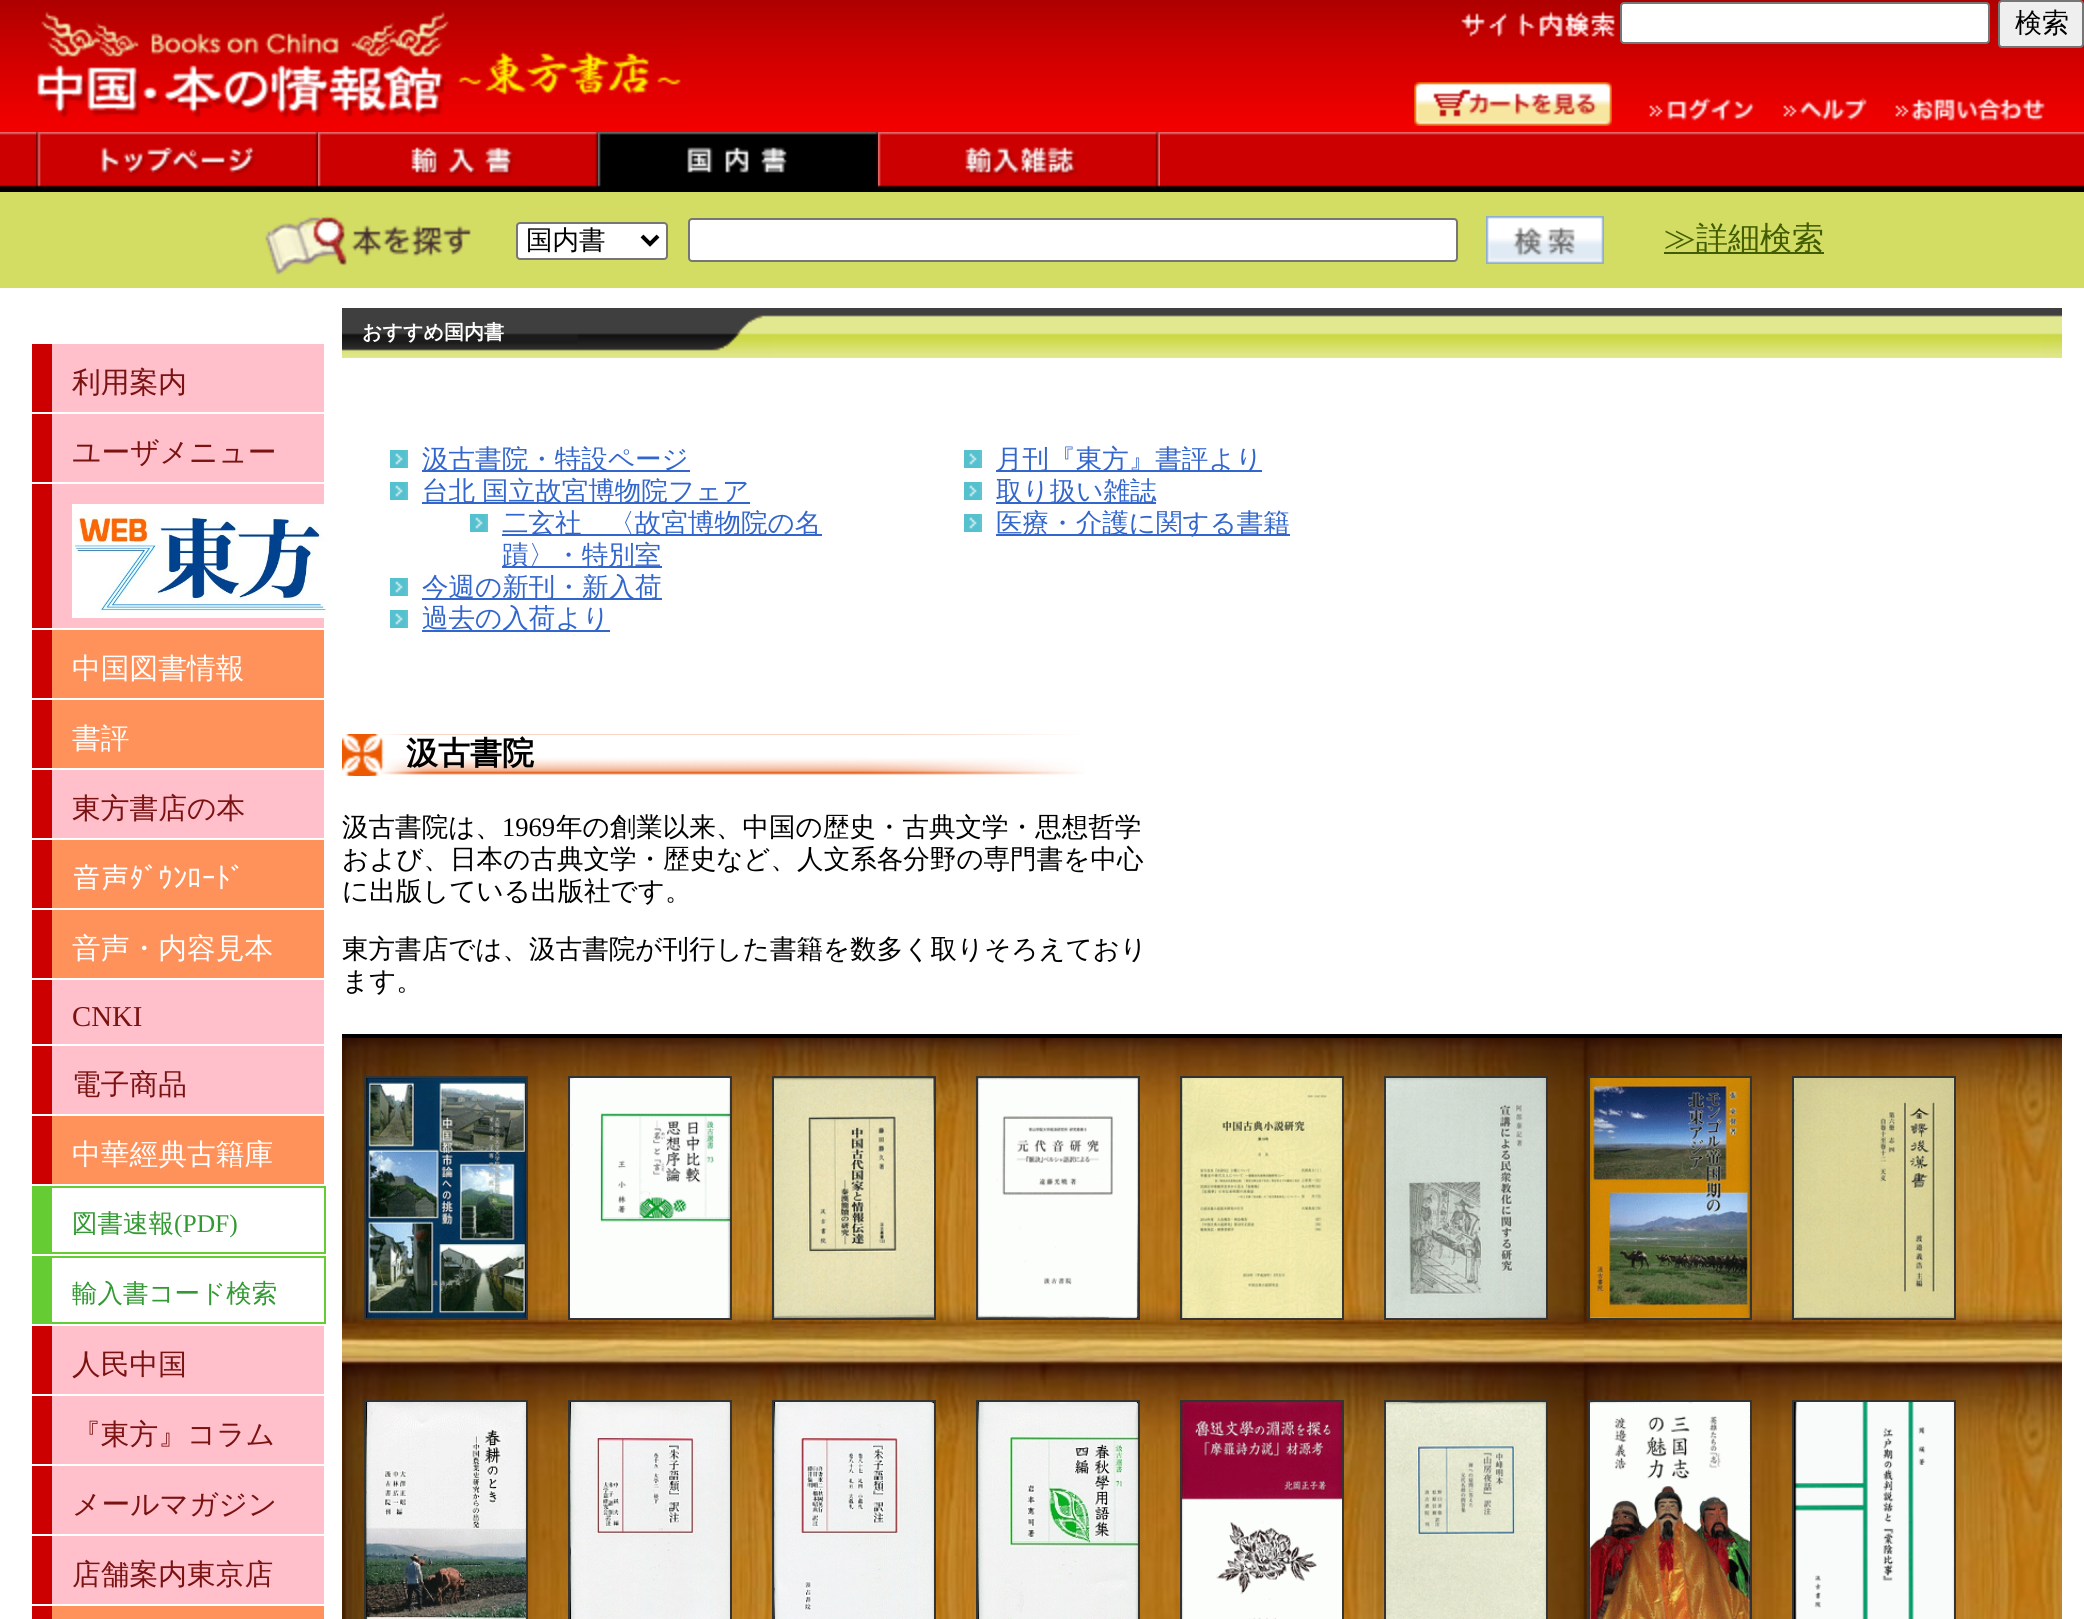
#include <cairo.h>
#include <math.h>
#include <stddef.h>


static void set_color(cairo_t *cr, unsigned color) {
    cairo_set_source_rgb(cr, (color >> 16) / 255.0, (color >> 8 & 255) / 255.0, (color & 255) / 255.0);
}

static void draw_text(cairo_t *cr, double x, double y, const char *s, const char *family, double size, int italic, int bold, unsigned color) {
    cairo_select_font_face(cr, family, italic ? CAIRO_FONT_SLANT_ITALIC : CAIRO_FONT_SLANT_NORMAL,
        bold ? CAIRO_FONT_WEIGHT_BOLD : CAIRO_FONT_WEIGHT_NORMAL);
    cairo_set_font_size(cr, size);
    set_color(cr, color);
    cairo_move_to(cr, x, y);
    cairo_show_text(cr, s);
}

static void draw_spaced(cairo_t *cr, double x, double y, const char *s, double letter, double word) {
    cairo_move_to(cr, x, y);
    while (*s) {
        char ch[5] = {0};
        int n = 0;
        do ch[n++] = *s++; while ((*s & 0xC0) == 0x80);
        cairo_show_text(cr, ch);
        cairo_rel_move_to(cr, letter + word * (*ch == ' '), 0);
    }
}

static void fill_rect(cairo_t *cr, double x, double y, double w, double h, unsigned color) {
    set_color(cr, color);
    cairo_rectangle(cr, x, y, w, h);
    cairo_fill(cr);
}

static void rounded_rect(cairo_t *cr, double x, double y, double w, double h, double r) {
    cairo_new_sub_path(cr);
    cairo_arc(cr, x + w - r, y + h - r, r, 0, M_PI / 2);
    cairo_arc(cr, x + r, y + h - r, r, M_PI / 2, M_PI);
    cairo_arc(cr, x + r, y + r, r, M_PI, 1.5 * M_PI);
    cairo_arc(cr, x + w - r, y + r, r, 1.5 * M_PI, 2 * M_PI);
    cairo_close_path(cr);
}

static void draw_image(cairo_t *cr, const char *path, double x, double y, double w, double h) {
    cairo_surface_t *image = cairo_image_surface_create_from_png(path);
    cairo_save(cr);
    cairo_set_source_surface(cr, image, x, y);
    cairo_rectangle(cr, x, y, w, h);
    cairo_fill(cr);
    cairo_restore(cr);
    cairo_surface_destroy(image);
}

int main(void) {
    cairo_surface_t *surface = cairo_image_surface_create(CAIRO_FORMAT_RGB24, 2084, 1619);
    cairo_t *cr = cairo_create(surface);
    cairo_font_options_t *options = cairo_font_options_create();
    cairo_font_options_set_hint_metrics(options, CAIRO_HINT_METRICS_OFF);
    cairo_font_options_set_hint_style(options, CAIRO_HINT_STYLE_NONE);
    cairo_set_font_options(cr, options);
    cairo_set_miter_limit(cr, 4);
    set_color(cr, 0xFFFFFF);
    cairo_paint(cr);
    draw_image(cr, "assets/img1.png", 0, 0, 2084, 132);
    draw_image(cr, "assets/img2.png", 37, 11, 644, 108);
    draw_image(cr, "assets/img3.png", 1461, 11, 154, 26);
    set_color(cr, 0xFFFFFF);
    rounded_rect(cr, 1621, 3, 368, 40, 3);
    cairo_fill_preserve(cr);
    set_color(cr, 0x767676);
    cairo_stroke(cr);
    set_color(cr, 0xEFEFEF);
    rounded_rect(cr, 1999, 1, 84, 46, 3);
    cairo_fill_preserve(cr);
    set_color(cr, 0x767676);
    cairo_stroke(cr);
    draw_text(cr, 2015, 32, "検索", "WenQuanYi Zen Hei Medium", 27, 0, 0, 0x000000);
    draw_image(cr, "assets/img4.png", 1414, 82, 198, 44);
    draw_image(cr, "assets/img5.png", 1415, 83, 196, 42);
    draw_image(cr, "assets/img6.png", 1649, 97, 106, 24);
    draw_image(cr, "assets/img7.png", 1783, 97, 84, 24);
    draw_image(cr, "assets/img8.png", 1895, 97, 150, 24);
    draw_image(cr, "assets/img9.png", 0, 132, 2084, 60);
    draw_image(cr, "assets/img10.png", 36, 132, 1, 55);
    draw_image(cr, "assets/img11.png", 37, 132, 281, 55);
    draw_image(cr, "assets/img12.png", 318, 132, 280, 55);
    draw_image(cr, "assets/img13.png", 598, 132, 280, 55);
    draw_image(cr, "assets/img14.png", 1159, 132, 1, 55);
    draw_image(cr, "assets/img15.png", 878, 132, 281, 55);
    fill_rect(cr, 0, 192, 2084, 96, 0xD3DD64);
    draw_image(cr, "assets/img16.png", 265, 215, 206, 60);
    set_color(cr, 0xFFFFFF);
    rounded_rect(cr, 517, 223, 150, 36, 3);
    cairo_fill_preserve(cr);
    set_color(cr, 0x767676);
    cairo_stroke(cr);
    cairo_new_path(cr);
    cairo_move_to(cr, 642, 236);
    cairo_line_to(cr, 650, 244);
    cairo_line_to(cr, 658, 236);
    set_color(cr, 0x000000);
    cairo_set_line_width(cr, 4);
    cairo_stroke(cr);
    draw_text(cr, 526, 249, "国内書", "WenQuanYi Zen Hei Medium", 26.55, 0, 0, 0x000000);
    set_color(cr, 0xFFFFFF);
    rounded_rect(cr, 689, 219, 768, 42, 3);
    cairo_fill_preserve(cr);
    set_color(cr, 0x767676);
    cairo_set_line_width(cr, 2);
    cairo_stroke(cr);
    draw_image(cr, "assets/img17.png", 1486, 216, 118, 48);
    draw_image(cr, "assets/img18.png", 1487, 217, 116, 46);
    fill_rect(cr, 1664, 252, 160, 2, 0x425D01);
    draw_text(cr, 1664, 249, "≫詳細検索", "WenQuanYi Zen Hei Medium", 32, 0, 0, 0x425D01);
    fill_rect(cr, 52, 344, 272, 68, 0xFFC0CB);
    fill_rect(cr, 32, 344, 20, 68, 0xCC0000);
    draw_text(cr, 72, 392, "利用案内", "WenQuanYi Zen Hei Medium", 28.75, 0, 0, 0x7B1212);
    fill_rect(cr, 52, 414, 272, 68, 0xFFC0CB);
    fill_rect(cr, 32, 414, 20, 68, 0xCC0000);
    draw_text(cr, 72, 462, "ユーザメニュー", "WenQuanYi Zen Hei Medium", 28.75, 0, 0, 0x7B1212);
    fill_rect(cr, 52, 484, 272, 144, 0xFFC0CB);
    fill_rect(cr, 32, 484, 20, 144, 0xCC0000);
    draw_image(cr, "assets/img19.png", 72, 504, 256, 114);
    fill_rect(cr, 52, 630, 272, 68, 0xFF915A);
    fill_rect(cr, 32, 630, 20, 68, 0xCC0000);
    draw_text(cr, 72, 678, "中国図書情報", "WenQuanYi Zen Hei Medium", 28.75, 0, 0, 0xFFFFFF);
    fill_rect(cr, 52, 700, 272, 68, 0xFF915A);
    fill_rect(cr, 32, 700, 20, 68, 0xCC0000);
    draw_text(cr, 72, 748, "書評", "WenQuanYi Zen Hei Medium", 28.75, 0, 0, 0xFFFFFF);
    fill_rect(cr, 52, 770, 272, 68, 0xFFC0CB);
    fill_rect(cr, 32, 770, 20, 68, 0xCC0000);
    draw_text(cr, 72, 818, "東方書店の本", "WenQuanYi Zen Hei Medium", 28.75, 0, 0, 0x7B1212);
    fill_rect(cr, 52, 840, 272, 68, 0xFF915A);
    fill_rect(cr, 32, 840, 20, 68, 0xCC0000);
    draw_text(cr, 72, 888, "音声ﾀﾞｳﾝﾛｰﾄﾞ", "IPAGothic", 28.75, 0, 0, 0xFFFFFF);
    fill_rect(cr, 52, 910, 272, 68, 0xFF915A);
    fill_rect(cr, 32, 910, 20, 68, 0xCC0000);
    draw_text(cr, 72, 958, "音声・内容見本", "WenQuanYi Zen Hei Medium", 28.75, 0, 0, 0xFFFFFF);
    fill_rect(cr, 52, 980, 272, 64, 0xFFC0CB);
    fill_rect(cr, 32, 980, 20, 64, 0xCC0000);
    draw_text(cr, 72, 1026, "CNKI", "Liberation Serif", 28.75, 0, 0, 0x7B1212);
    fill_rect(cr, 52, 1046, 272, 68, 0xFFC0CB);
    fill_rect(cr, 32, 1046, 20, 68, 0xCC0000);
    draw_text(cr, 72, 1094, "電子商品", "WenQuanYi Zen Hei Medium", 28.75, 0, 0, 0x7B1212);
    fill_rect(cr, 52, 1116, 272, 68, 0xFF915A);
    fill_rect(cr, 32, 1116, 20, 68, 0xCC0000);
    draw_text(cr, 72, 1164, "中華經典古籍庫", "WenQuanYi Zen Hei Medium", 28.75, 0, 0, 0xFFFFFF);
    fill_rect(cr, 52, 1186, 274, 2, 0x66CC33);
    fill_rect(cr, 324, 1186, 2, 68, 0x66CC33);
    fill_rect(cr, 52, 1252, 274, 2, 0x66CC33);
    fill_rect(cr, 32, 1186, 20, 68, 0x66CC33);
    draw_text(cr, 72, 1232, "図書速報", "WenQuanYi Zen Hei Medium", 25.5, 0, 0, 0x339933);
    draw_text(cr, 174, 1232, "(PDF)", "Liberation Serif", 25.5, 0, 0, 0x339933);
    fill_rect(cr, 52, 1256, 274, 2, 0x66CC33);
    fill_rect(cr, 324, 1256, 2, 68, 0x66CC33);
    fill_rect(cr, 52, 1322, 274, 2, 0x66CC33);
    fill_rect(cr, 32, 1256, 20, 68, 0x66CC33);
    draw_text(cr, 72, 1302, "輸入書コード検索", "WenQuanYi Zen Hei Medium", 25.5, 0, 0, 0x339933);
    fill_rect(cr, 52, 1326, 272, 68, 0xFFC0CB);
    fill_rect(cr, 32, 1326, 20, 68, 0xCC0000);
    draw_text(cr, 72, 1374, "人民中国", "WenQuanYi Zen Hei Medium", 28.75, 0, 0, 0x7B1212);
    fill_rect(cr, 52, 1396, 272, 68, 0xFFC0CB);
    fill_rect(cr, 32, 1396, 20, 68, 0xCC0000);
    draw_text(cr, 72, 1444, "『東方』コラム", "WenQuanYi Zen Hei Medium", 28.75, 0, 0, 0x7B1212);
    fill_rect(cr, 52, 1466, 272, 68, 0xFFC0CB);
    fill_rect(cr, 32, 1466, 20, 68, 0xCC0000);
    draw_text(cr, 72, 1514, "メールマガジン", "WenQuanYi Zen Hei Medium", 28.75, 0, 0, 0x7B1212);
    fill_rect(cr, 52, 1536, 272, 68, 0xFFC0CB);
    fill_rect(cr, 32, 1536, 20, 68, 0xCC0000);
    draw_text(cr, 72, 1584, "店舗案内東京店", "WenQuanYi Zen Hei Medium", 28.75, 0, 0, 0x7B1212);
    fill_rect(cr, 52, 1606, 272, 13, 0xFF915A);
    fill_rect(cr, 32, 1606, 20, 13, 0xCC0000);
    draw_image(cr, "assets/img20.png", 342, 308, 430, 50);
    draw_text(cr, 362, 339, "おすすめ国内書", "WenQuanYi Zen Hei", 20, 0, 1, 0xFFFFFF);
    draw_image(cr, "assets/img21.png", 772, 308, 1270, 50);
    draw_image(cr, "assets/img22.png", 2042, 308, 20, 50);
    draw_image(cr, "assets/img23.png", 390, 450, 18, 18);
    fill_rect(cr, 422, 470, 268, 2, 0x3366CC);
    draw_text(cr, 422, 468, "汲古書院・特設ページ", "WenQuanYi Zen Hei Medium", 26.55, 0, 0, 0x3366CC);
    draw_image(cr, "assets/img23.png", 390, 482, 18, 18);
    fill_rect(cr, 422, 502, 328, 2, 0x3366CC);
    draw_spaced(cr, 422, 500, "台北 国立故宮博物院フェア", 0, -1);
    draw_image(cr, "assets/img23.png", 470, 514, 18, 18);
    fill_rect(cr, 502, 534, 320, 2, 0x3366CC);
    draw_text(cr, 502, 532, "二玄社　〈故宮博物院の名", "WenQuanYi Zen Hei Medium", 26.55, 0, 0, 0x3366CC);
    fill_rect(cr, 502, 566, 160, 2, 0x3366CC);
    draw_text(cr, 502, 564, "蹟〉・特別室", "WenQuanYi Zen Hei Medium", 26.55, 0, 0, 0x3366CC);
    draw_image(cr, "assets/img23.png", 390, 578, 18, 18);
    fill_rect(cr, 422, 598, 240, 2, 0x3366CC);
    draw_text(cr, 422, 596, "今週の新刊・新入荷", "WenQuanYi Zen Hei Medium", 26.55, 0, 0, 0x3366CC);
    draw_image(cr, "assets/img23.png", 390, 610, 18, 18);
    fill_rect(cr, 422, 630, 188, 2, 0x3366CC);
    draw_text(cr, 422, 627, "過去の入荷より", "WenQuanYi Zen Hei Medium", 26.55, 0, 0, 0x3366CC);
    draw_image(cr, "assets/img23.png", 964, 450, 18, 18);
    fill_rect(cr, 996, 470, 266, 2, 0x3366CC);
    draw_text(cr, 996, 468, "月刊『東方』書評より", "WenQuanYi Zen Hei Medium", 26.55, 0, 0, 0x3366CC);
    draw_image(cr, "assets/img23.png", 964, 482, 18, 18);
    fill_rect(cr, 996, 502, 160, 2, 0x3366CC);
    draw_text(cr, 996, 500, "取り扱い雑誌", "WenQuanYi Zen Hei Medium", 26.55, 0, 0, 0x3366CC);
    draw_image(cr, "assets/img23.png", 964, 514, 18, 18);
    fill_rect(cr, 996, 534, 294, 2, 0x3366CC);
    draw_text(cr, 996, 532, "医療・介護に関する書籍", "WenQuanYi Zen Hei Medium", 26.55, 0, 0, 0x3366CC);
    draw_image(cr, "assets/img24.png", 342, 734, 742, 42);
    draw_text(cr, 406, 764, "汲古書院", "WenQuanYi Zen Hei", 32, 0, 1, 0x000000);
    draw_text(cr, 342, 836, "汲古書院は、", "WenQuanYi Zen Hei Medium", 26.55, 0, 0, 0x000000);
    draw_text(cr, 502, 836, "1969", "Liberation Serif", 26.55, 0, 0, 0x000000);
    draw_text(cr, 556, 836, "年の創業以来、中国の歴史・古典文学・思想哲学", "WenQuanYi Zen Hei Medium", 26.55, 0, 0, 0x000000);
    draw_text(cr, 342, 868, "および、日本の古典文学・歴史など、人文系各分野の専門書を中心", "WenQuanYi Zen Hei Medium", 26.55, 0, 0, 0x000000);
    draw_text(cr, 342, 900, "に出版している出版社です。", "WenQuanYi Zen Hei Medium", 26.55, 0, 0, 0x000000);
    draw_text(cr, 342, 958, "東方書店では、汲古書院が刊行した書籍を数多く取りそろえており", "WenQuanYi Zen Hei Medium", 26.55, 0, 0, 0x000000);
    draw_text(cr, 342, 990, "ます。", "WenQuanYi Zen Hei Medium", 26.55, 0, 0, 0x000000);
    draw_image(cr, "assets/img25.png", 342, 1038, 1720, 581);
    fill_rect(cr, 342, 1034, 1720, 4, 0x000000);
    cairo_rectangle(cr, 365, 1077, 162, 242);
    set_color(cr, 0x333333);
    cairo_stroke(cr);
    draw_image(cr, "assets/img26.png", 366, 1078, 160, 240);
    cairo_rectangle(cr, 569, 1077, 162, 242);
    cairo_stroke(cr);
    draw_image(cr, "assets/img27.png", 570, 1078, 160, 240);
    cairo_rectangle(cr, 773, 1077, 162, 242);
    cairo_stroke(cr);
    draw_image(cr, "assets/img28.png", 774, 1078, 160, 240);
    cairo_rectangle(cr, 977, 1077, 162, 242);
    cairo_stroke(cr);
    draw_image(cr, "assets/img29.png", 978, 1078, 160, 240);
    cairo_rectangle(cr, 1181, 1077, 162, 242);
    cairo_stroke(cr);
    draw_image(cr, "assets/img30.png", 1182, 1078, 160, 240);
    cairo_rectangle(cr, 1385, 1077, 162, 242);
    cairo_stroke(cr);
    draw_image(cr, "assets/img31.png", 1386, 1078, 160, 240);
    cairo_rectangle(cr, 1589, 1077, 162, 242);
    cairo_stroke(cr);
    draw_image(cr, "assets/img32.png", 1590, 1078, 160, 240);
    cairo_rectangle(cr, 1793, 1077, 162, 242);
    cairo_stroke(cr);
    draw_image(cr, "assets/img33.png", 1794, 1078, 160, 240);
    cairo_rectangle(cr, 365, 1401, 162, 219);
    cairo_stroke(cr);
    draw_image(cr, "assets/img34.png", 366, 1402, 160, 217);
    cairo_rectangle(cr, 569, 1401, 162, 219);
    cairo_stroke(cr);
    draw_image(cr, "assets/img35.png", 570, 1402, 160, 217);
    cairo_rectangle(cr, 773, 1401, 162, 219);
    cairo_stroke(cr);
    draw_image(cr, "assets/img36.png", 774, 1402, 160, 217);
    cairo_rectangle(cr, 977, 1401, 162, 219);
    cairo_stroke(cr);
    draw_image(cr, "assets/img37.png", 978, 1402, 160, 217);
    cairo_rectangle(cr, 1181, 1401, 162, 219);
    cairo_stroke(cr);
    draw_image(cr, "assets/img38.png", 1182, 1402, 160, 217);
    cairo_rectangle(cr, 1385, 1401, 162, 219);
    cairo_stroke(cr);
    draw_image(cr, "assets/img39.png", 1386, 1402, 160, 217);
    cairo_rectangle(cr, 1589, 1401, 162, 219);
    cairo_stroke(cr);
    draw_image(cr, "assets/img40.png", 1590, 1402, 160, 217);
    cairo_rectangle(cr, 1793, 1401, 162, 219);
    cairo_stroke(cr);
    draw_image(cr, "assets/img41.png", 1794, 1402, 160, 217);
    cairo_surface_write_to_png(surface, "output.png");
    cairo_font_options_destroy(options);
    cairo_destroy(cr);
    cairo_surface_destroy(surface);
    return 0;
}
